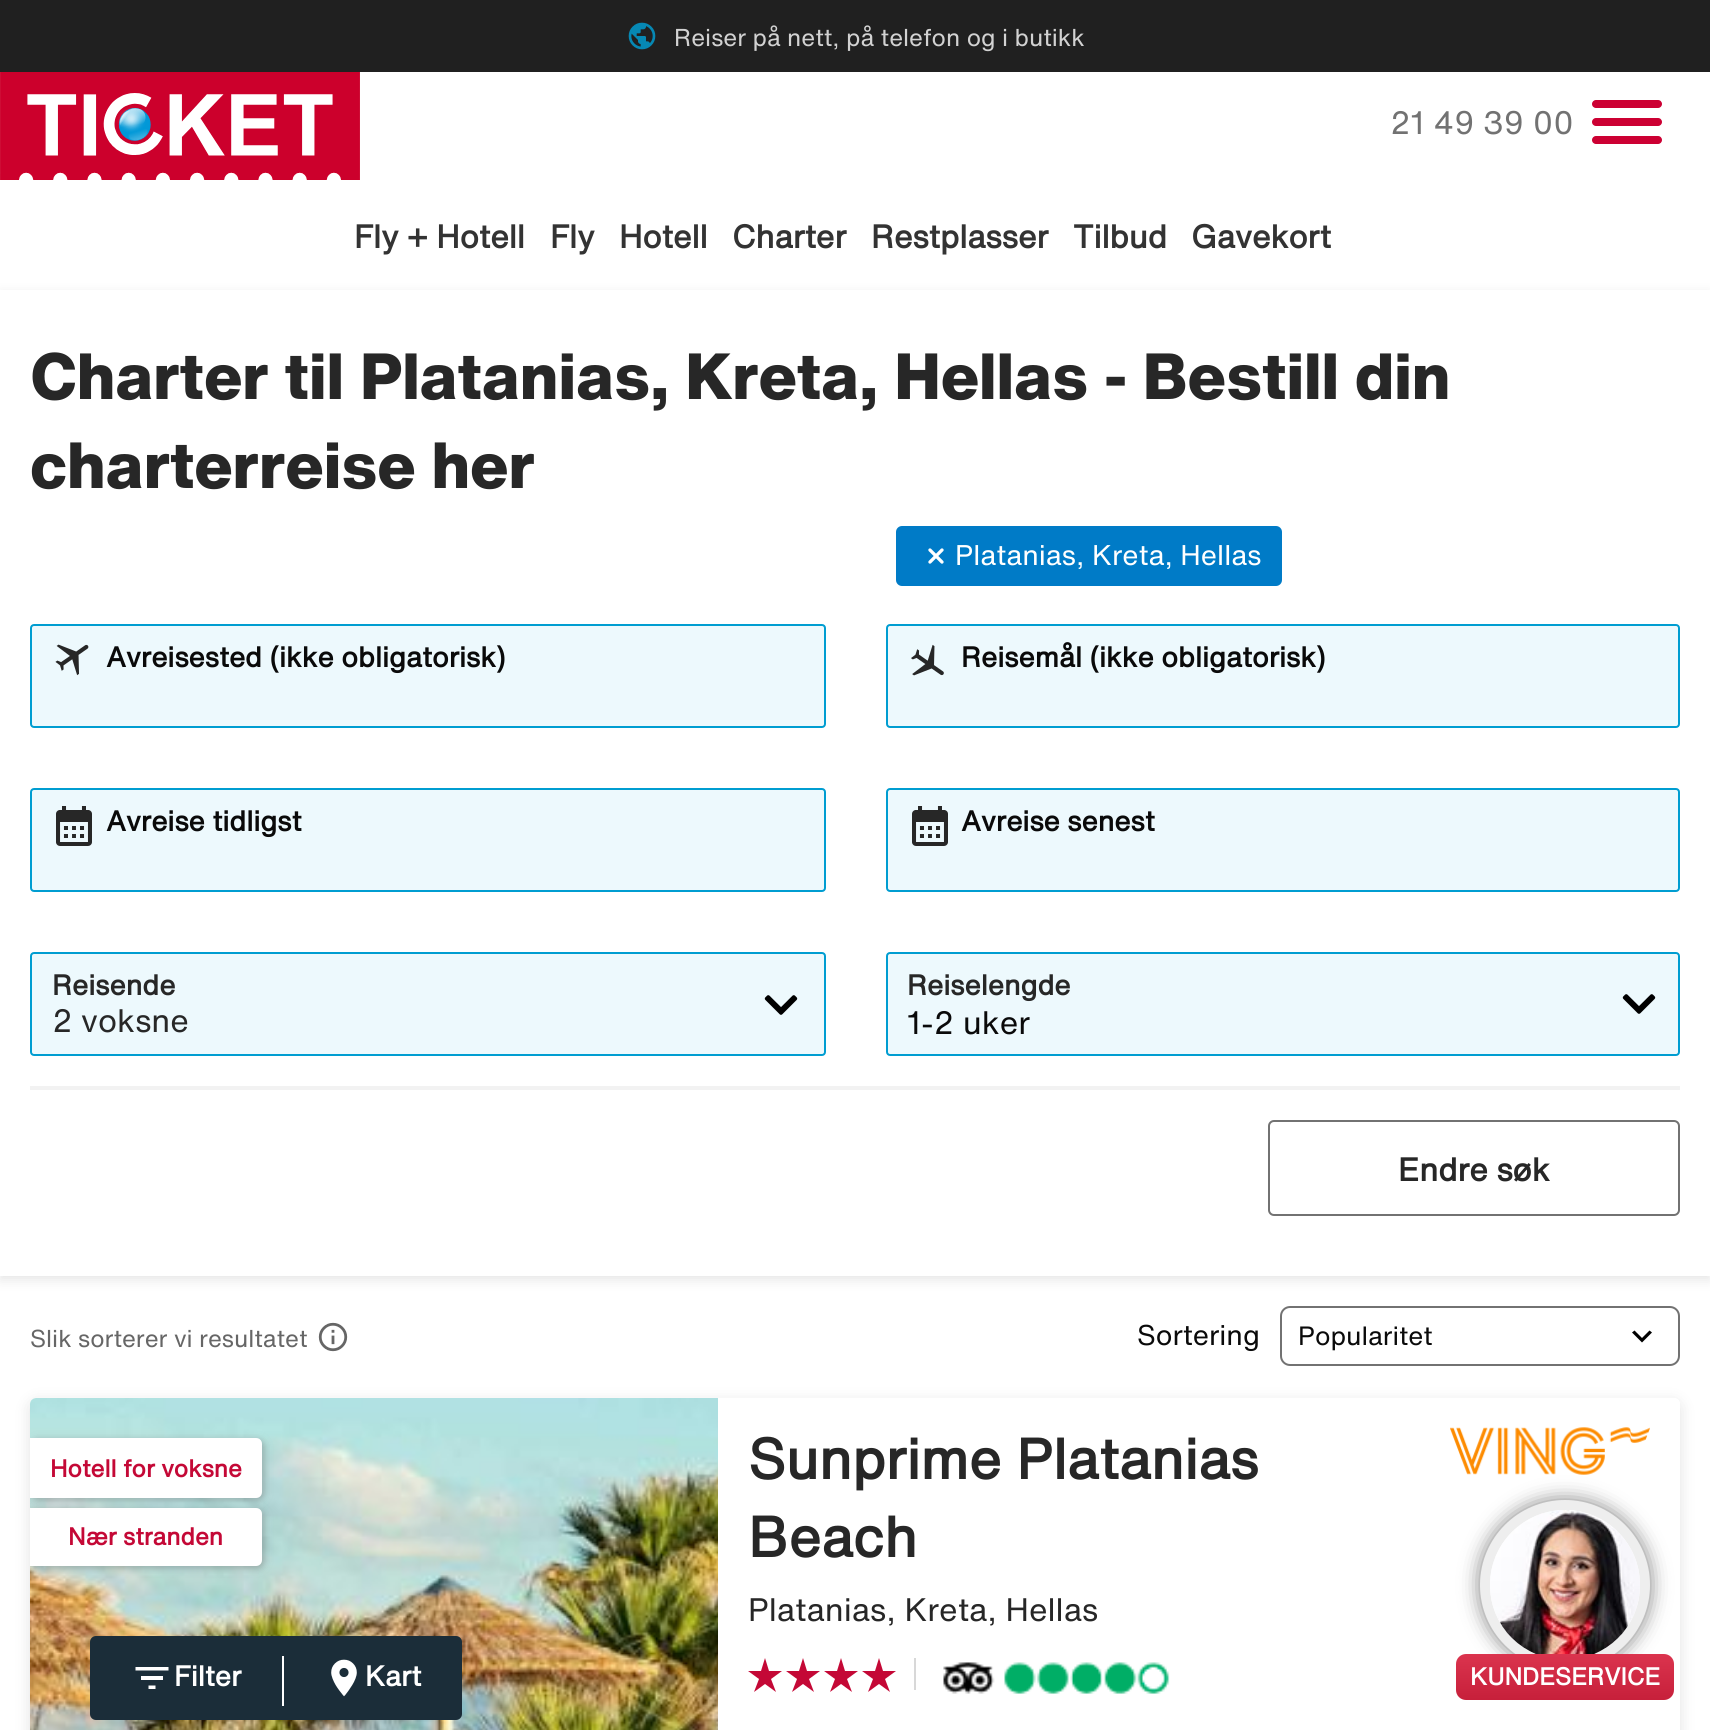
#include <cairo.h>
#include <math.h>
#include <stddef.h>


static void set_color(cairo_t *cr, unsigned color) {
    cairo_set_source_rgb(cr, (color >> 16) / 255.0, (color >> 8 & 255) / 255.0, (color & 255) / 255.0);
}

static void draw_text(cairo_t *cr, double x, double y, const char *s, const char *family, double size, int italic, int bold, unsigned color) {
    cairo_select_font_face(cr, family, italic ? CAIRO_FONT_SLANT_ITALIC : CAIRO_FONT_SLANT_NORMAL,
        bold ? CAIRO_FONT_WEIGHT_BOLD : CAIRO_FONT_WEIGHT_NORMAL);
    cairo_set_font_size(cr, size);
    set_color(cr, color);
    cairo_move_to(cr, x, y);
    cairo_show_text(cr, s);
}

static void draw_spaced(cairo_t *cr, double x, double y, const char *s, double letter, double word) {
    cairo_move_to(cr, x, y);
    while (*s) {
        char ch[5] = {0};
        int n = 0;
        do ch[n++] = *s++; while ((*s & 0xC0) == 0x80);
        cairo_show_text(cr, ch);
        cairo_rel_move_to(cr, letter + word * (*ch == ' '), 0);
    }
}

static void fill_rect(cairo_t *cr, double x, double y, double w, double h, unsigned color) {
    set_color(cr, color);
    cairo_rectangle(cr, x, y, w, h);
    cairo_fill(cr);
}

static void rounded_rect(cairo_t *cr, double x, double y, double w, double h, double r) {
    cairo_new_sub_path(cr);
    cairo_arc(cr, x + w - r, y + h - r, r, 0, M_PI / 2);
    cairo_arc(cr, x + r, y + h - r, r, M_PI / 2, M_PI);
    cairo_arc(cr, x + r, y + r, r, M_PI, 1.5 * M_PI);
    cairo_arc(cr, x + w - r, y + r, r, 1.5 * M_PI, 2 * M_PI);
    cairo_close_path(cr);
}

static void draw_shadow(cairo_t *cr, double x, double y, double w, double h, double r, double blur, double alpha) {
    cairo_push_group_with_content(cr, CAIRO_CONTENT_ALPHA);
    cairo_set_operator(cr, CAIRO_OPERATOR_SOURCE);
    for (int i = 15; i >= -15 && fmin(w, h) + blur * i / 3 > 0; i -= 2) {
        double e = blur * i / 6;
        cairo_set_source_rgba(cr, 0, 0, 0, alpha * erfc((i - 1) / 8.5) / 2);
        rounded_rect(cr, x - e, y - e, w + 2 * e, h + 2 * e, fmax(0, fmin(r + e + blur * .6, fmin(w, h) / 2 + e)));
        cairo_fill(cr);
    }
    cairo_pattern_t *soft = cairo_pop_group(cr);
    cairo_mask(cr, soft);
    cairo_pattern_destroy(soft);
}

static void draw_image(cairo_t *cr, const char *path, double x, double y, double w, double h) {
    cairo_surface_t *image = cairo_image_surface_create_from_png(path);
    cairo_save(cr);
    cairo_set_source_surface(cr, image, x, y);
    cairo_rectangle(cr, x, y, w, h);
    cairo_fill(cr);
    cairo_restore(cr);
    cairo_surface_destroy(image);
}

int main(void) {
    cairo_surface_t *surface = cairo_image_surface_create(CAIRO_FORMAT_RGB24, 1710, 1730);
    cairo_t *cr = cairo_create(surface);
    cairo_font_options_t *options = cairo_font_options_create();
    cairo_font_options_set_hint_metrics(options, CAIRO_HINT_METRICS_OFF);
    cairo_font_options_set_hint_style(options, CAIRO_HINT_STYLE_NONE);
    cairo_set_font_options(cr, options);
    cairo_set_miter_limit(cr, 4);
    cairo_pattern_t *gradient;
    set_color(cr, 0xFFFFFF);
    cairo_paint(cr);
    fill_rect(cr, 0, 0, 1710, 72, 0x202020);
    draw_image(cr, "assets/img1.png", 628, 22, 28, 28);
    draw_text(cr, 674, 46, "Reiser på nett, på telefon og i butikk", "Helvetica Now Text", 24, 0, 0, 0xD2D2D2);
    draw_image(cr, "assets/img2.png", 0, 72, 360, 108);
    draw_text(cr, 1390, 134, "21 49 39 00", "Helvetica Now Text", 32, 0, 0, 0x727272);
    set_color(cr, 0xCC0033);
    rounded_rect(cr, 1592, 100, 70, 8, 4);
    cairo_fill(cr);
    rounded_rect(cr, 1592, 118, 70, 8, 4);
    cairo_fill(cr);
    rounded_rect(cr, 1592, 136, 70, 8, 4);
    cairo_fill(cr);
    draw_text(cr, 354, 248, "Fly + Hotell", "Helvetica Now Text", 32, 0, 1, 0x333333);
    draw_text(cr, 550, 248, "Fly", "Helvetica Now Text", 32, 0, 1, 0x333333);
    draw_text(cr, 619, 248, "Hotell", "Helvetica Now Text", 32, 0, 1, 0x333333);
    draw_text(cr, 732, 248, "Charter", "Helvetica Now Text", 32, 0, 1, 0x333333);
    draw_text(cr, 871, 248, "Restplasser", "Helvetica Now Text", 32, 0, 1, 0x333333);
    draw_text(cr, 1073, 248, "Tilbud", "Helvetica Now Text", 32, 0, 1, 0x333333);
    draw_text(cr, 1191, 248, "Gavekort", "Helvetica Now Text", 32, 0, 1, 0x333333);
    set_color(cr, 0x000000);
    draw_shadow(cr, 0, 294, 1710, 986, 0, 6, 0.1);
    fill_rect(cr, 0, 290, 1710, 986, 0xFFFFFF);
    cairo_select_font_face(cr, "Helvetica Now Text ExtraBold", CAIRO_FONT_SLANT_NORMAL, CAIRO_FONT_WEIGHT_NORMAL);
    cairo_set_font_size(cr, 64);
    set_color(cr, 0x272727);
    draw_spaced(cr, 30, 399, "Charter til Platanias, Kreta, Hellas - Bestill din", -0.5, 0);
    draw_spaced(cr, 30, 488, "charterreise her", -0.5, 0);
    set_color(cr, 0xEDF9FD);
    rounded_rect(cr, 31, 625, 794, 102, 3);
    cairo_fill_preserve(cr);
    set_color(cr, 0x009DD1);
    cairo_stroke(cr);
    draw_image(cr, "assets/img3.png", 55, 644, 34, 32);
    draw_text(cr, 106, 667, "Avreisested (ikke obligatorisk)", "Helvetica Now Text", 28, 0, 1, 0x0A0A0A);
    set_color(cr, 0x007BC7);
    rounded_rect(cr, 896, 526, 386, 60, 6);
    cairo_fill(cr);
    draw_image(cr, "assets/img4.png", 928, 548, 16, 16);
    draw_text(cr, 955, 565, "Platanias, Kreta, Hellas", "Helvetica Now Text", 28, 0, 0, 0xFFFFFF);
    set_color(cr, 0xEDF9FD);
    rounded_rect(cr, 887, 625, 792, 102, 3);
    cairo_fill_preserve(cr);
    set_color(cr, 0x009DD1);
    cairo_stroke(cr);
    draw_image(cr, "assets/img5.png", 911, 644, 33, 32);
    draw_text(cr, 961, 667, "Reisemål (ikke obligatorisk)", "Helvetica Now Text", 28, 0, 1, 0x0A0A0A);
    set_color(cr, 0xEDF9FD);
    rounded_rect(cr, 31, 789, 794, 102, 3);
    cairo_fill_preserve(cr);
    set_color(cr, 0x009DD1);
    cairo_stroke(cr);
    draw_image(cr, "assets/img6.png", 56, 806, 36, 40);
    draw_text(cr, 106, 831, "Avreise tidligst", "Helvetica Now Text", 28, 0, 1, 0x0A0A0A);
    set_color(cr, 0xEDF9FD);
    rounded_rect(cr, 887, 789, 792, 102, 3);
    cairo_fill_preserve(cr);
    set_color(cr, 0x009DD1);
    cairo_stroke(cr);
    draw_image(cr, "assets/img6.png", 912, 806, 36, 40);
    draw_text(cr, 961, 831, "Avreise senest", "Helvetica Now Text", 28, 0, 1, 0x0A0A0A);
    set_color(cr, 0xEDF9FD);
    rounded_rect(cr, 31, 953, 794, 102, 3);
    cairo_fill_preserve(cr);
    set_color(cr, 0x009DD1);
    cairo_stroke(cr);
    draw_text(cr, 52, 995, "Reisende", "Helvetica Now Text", 28, 0, 1, 0x272727);
    draw_text(cr, 52, 1032, "2 voksne", "Helvetica Now Text", 32, 0, 0, 0x272727);
    draw_image(cr, "assets/img7.png", 764, 995, 34, 20);
    set_color(cr, 0xEDF9FD);
    rounded_rect(cr, 887, 953, 792, 102, 3);
    cairo_fill_preserve(cr);
    set_color(cr, 0x009DD1);
    cairo_stroke(cr);
    draw_text(cr, 907, 995, "Reiselengde", "Helvetica Now Text", 28, 0, 1, 0x272727);
    draw_image(cr, "assets/img7.png", 1622, 994, 34, 20);
    draw_text(cr, 907, 1034, "1-2 uker", "Helvetica Now Text", 32, 0, 0, 0x0A0A0A);
    fill_rect(cr, 30, 1086, 1650, 4, 0xF2F2F2);
    rounded_rect(cr, 1269, 1121, 410, 94, 5);
    set_color(cr, 0x727272);
    cairo_stroke(cr);
    draw_text(cr, 1398, 1181, "Endre søk", "Helvetica Now Text", 32, 0, 1, 0x272727);
    draw_text(cr, 30, 1347, "Slik sorterer vi resultatet", "Helvetica Now Text", 24, 0, 0, 0x666666);
    draw_image(cr, "assets/img8.png", 318, 1322, 30, 30);
    draw_text(cr, 1137, 1345, "Sortering", "Helvetica Now Text", 28, 0, 0, 0x0A0A0A);
    set_color(cr, 0x000000);
    cairo_new_path(cr);
    cairo_move_to(cr, 1634.5, 1330.5);
    cairo_line_to(cr, 1642, 1338);
    cairo_line_to(cr, 1649.5, 1330.5);
    cairo_line_to(cr, 1652, 1332.5);
    cairo_line_to(cr, 1642, 1342.5);
    cairo_line_to(cr, 1632, 1332.5);
    cairo_close_path(cr);
    cairo_fill(cr);
    rounded_rect(cr, 1281, 1307, 398, 58, 9);
    set_color(cr, 0x727272);
    cairo_stroke(cr);
    draw_text(cr, 1298, 1345, "Popularitet", "Helvetica Now Text", 26, 0, 0, 0x0A0A0A);
    cairo_save(cr);
    cairo_set_fill_rule(cr, CAIRO_FILL_RULE_EVEN_ODD);
    cairo_new_path(cr);
    cairo_move_to(cr, 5, 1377);
    cairo_line_to(cr, 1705, 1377);
    cairo_line_to(cr, 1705, 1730);
    cairo_line_to(cr, 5, 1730);
    cairo_close_path(cr);
    cairo_move_to(cr, 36, 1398);
    cairo_line_to(cr, 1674, 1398);
    cairo_curve_to(cr, 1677.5, 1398, 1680, 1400.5, 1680, 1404);
    cairo_line_to(cr, 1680, 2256);
    cairo_curve_to(cr, 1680, 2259.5, 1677.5, 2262, 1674, 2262);
    cairo_line_to(cr, 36, 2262);
    cairo_curve_to(cr, 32.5, 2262, 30, 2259.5, 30, 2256);
    cairo_line_to(cr, 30, 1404);
    cairo_curve_to(cr, 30, 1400.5, 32.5, 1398, 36, 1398);
    cairo_close_path(cr);
    cairo_clip(cr);
    set_color(cr, 0x000000);
    draw_shadow(cr, 30, 1402, 1650, 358, 6, 8, 0.11);
    cairo_restore(cr);
    draw_image(cr, "assets/img9.png", 30, 1398, 688, 332);
    cairo_save(cr);
    cairo_new_path(cr);
    cairo_move_to(cr, 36, 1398);
    cairo_line_to(cr, 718, 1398);
    cairo_line_to(cr, 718, 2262);
    cairo_line_to(cr, 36, 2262);
    cairo_curve_to(cr, 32.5, 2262, 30, 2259.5, 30, 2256);
    cairo_line_to(cr, 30, 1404);
    cairo_curve_to(cr, 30, 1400.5, 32.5, 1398, 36, 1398);
    cairo_close_path(cr);
    cairo_clip(cr);
    set_color(cr, 0x727272);
    draw_shadow(cr, 32, 1440, 232, 60, 6, 4, 0.5);
    cairo_restore(cr);
    set_color(cr, 0xFFFFFF);
    cairo_new_path(cr);
    cairo_move_to(cr, 30, 1438);
    cairo_line_to(cr, 256, 1438);
    cairo_curve_to(cr, 259.5, 1438, 262, 1440.5, 262, 1444);
    cairo_line_to(cr, 262, 1492);
    cairo_curve_to(cr, 262, 1495.5, 259.5, 1498, 256, 1498);
    cairo_line_to(cr, 30, 1498);
    cairo_close_path(cr);
    cairo_fill(cr);
    draw_text(cr, 50, 1477, "Hotell for voksne", "Helvetica Now Text", 24, 0, 1, 0xC40836);
    cairo_save(cr);
    cairo_new_path(cr);
    cairo_move_to(cr, 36, 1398);
    cairo_line_to(cr, 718, 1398);
    cairo_line_to(cr, 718, 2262);
    cairo_line_to(cr, 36, 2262);
    cairo_curve_to(cr, 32.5, 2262, 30, 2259.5, 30, 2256);
    cairo_line_to(cr, 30, 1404);
    cairo_curve_to(cr, 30, 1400.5, 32.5, 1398, 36, 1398);
    cairo_close_path(cr);
    cairo_clip(cr);
    set_color(cr, 0x727272);
    draw_shadow(cr, 32, 1510, 232, 58, 6, 4, 0.5);
    cairo_restore(cr);
    set_color(cr, 0xFFFFFF);
    cairo_new_path(cr);
    cairo_move_to(cr, 30, 1508);
    cairo_line_to(cr, 256, 1508);
    cairo_curve_to(cr, 259.5, 1508, 262, 1510.5, 262, 1514);
    cairo_line_to(cr, 262, 1560);
    cairo_curve_to(cr, 262, 1563.5, 259.5, 1566, 256, 1566);
    cairo_line_to(cr, 30, 1566);
    cairo_close_path(cr);
    cairo_fill(cr);
    draw_text(cr, 68, 1545, "Nær stranden", "Helvetica Now Text", 24, 0, 1, 0xC40836);
    draw_text(cr, 748, 1479, "Sunprime Platanias", "Helvetica Now Text", 56, 0, 1, 0x272727);
    draw_text(cr, 748, 1557, "Beach", "Helvetica Now Text", 56, 0, 1, 0x272727);
    draw_text(cr, 748, 1621, "Platanias, Kreta, Hellas", "Helvetica Now Text", 32, 0, 0, 0x272727);
    draw_image(cr, "assets/img10.png", 1450, 1427, 200, 48);
    set_color(cr, 0xC40836);
    cairo_new_path(cr);
    cairo_move_to(cr, 782, 1671);
    cairo_line_to(cr, 769, 1671);
    cairo_line_to(cr, 765, 1658);
    cairo_line_to(cr, 761, 1671);
    cairo_line_to(cr, 748, 1671);
    cairo_line_to(cr, 759, 1679);
    cairo_line_to(cr, 754, 1692);
    cairo_line_to(cr, 765, 1684);
    cairo_line_to(cr, 776, 1692);
    cairo_line_to(cr, 771, 1679);
    cairo_close_path(cr);
    cairo_fill(cr);
    cairo_new_path(cr);
    cairo_move_to(cr, 820, 1671);
    cairo_line_to(cr, 807, 1671);
    cairo_line_to(cr, 803, 1658);
    cairo_line_to(cr, 799, 1671);
    cairo_line_to(cr, 786, 1671);
    cairo_line_to(cr, 797, 1679);
    cairo_line_to(cr, 792, 1692);
    cairo_line_to(cr, 803, 1684);
    cairo_line_to(cr, 814, 1692);
    cairo_line_to(cr, 809, 1679);
    cairo_close_path(cr);
    cairo_fill(cr);
    cairo_new_path(cr);
    cairo_move_to(cr, 858, 1671);
    cairo_line_to(cr, 845, 1671);
    cairo_line_to(cr, 841, 1658);
    cairo_line_to(cr, 837, 1671);
    cairo_line_to(cr, 824, 1671);
    cairo_line_to(cr, 835, 1679);
    cairo_line_to(cr, 830, 1692);
    cairo_line_to(cr, 841, 1684);
    cairo_line_to(cr, 852, 1692);
    cairo_line_to(cr, 847, 1679);
    cairo_close_path(cr);
    cairo_fill(cr);
    cairo_new_path(cr);
    cairo_move_to(cr, 896, 1671);
    cairo_line_to(cr, 883, 1671);
    cairo_line_to(cr, 879, 1658);
    cairo_line_to(cr, 875, 1671);
    cairo_line_to(cr, 862, 1671);
    cairo_line_to(cr, 873, 1679);
    cairo_line_to(cr, 868, 1692);
    cairo_line_to(cr, 879, 1684);
    cairo_line_to(cr, 890, 1692);
    cairo_line_to(cr, 885, 1679);
    cairo_close_path(cr);
    cairo_fill(cr);
    fill_rect(cr, 914, 1658, 2, 32, 0xD8D8D8);
    draw_image(cr, "assets/img11.png", 943, 1662, 227, 32);
    set_color(cr, 0x1B2D39);
    rounded_rect(cr, 90, 1636, 372, 84, 6);
    cairo_fill(cr);
    set_color(cr, 0xFFFFFF);
    cairo_new_path(cr);
    cairo_move_to(cr, 141, 1680);
    cairo_line_to(cr, 141, 1676);
    cairo_line_to(cr, 163, 1676);
    cairo_line_to(cr, 163, 1680);
    cairo_close_path(cr);
    cairo_move_to(cr, 135.5, 1667);
    cairo_line_to(cr, 168.5, 1667);
    cairo_line_to(cr, 168.5, 1670.5);
    cairo_line_to(cr, 135.5, 1670.5);
    cairo_close_path(cr);
    cairo_move_to(cr, 148.5, 1689);
    cairo_line_to(cr, 148.5, 1685.5);
    cairo_line_to(cr, 155.5, 1685.5);
    cairo_line_to(cr, 155.5, 1689);
    cairo_close_path(cr);
    cairo_fill(cr);
    draw_text(cr, 174, 1686, "Filter", "Helvetica Now Text", 28, 0, 1, 0xFFFFFF);
    fill_rect(cr, 282, 1656, 2, 50, 0xFFFFFF);
    draw_image(cr, "assets/img12.png", 331, 1659, 26, 38);
    draw_text(cr, 365, 1686, "Kart", "Helvetica Now Text", 28, 0, 1, 0xFFFFFF);
    set_color(cr, 0x000000);
    draw_shadow(cr, 1480, 1500, 170, 170, 85, 10, 0.5);
    set_color(cr, 0xFEFEFE);
    cairo_arc(cr, 1565, 1585, 80, 0, 2 * M_PI);
    cairo_fill_preserve(cr);
    set_color(cr, 0xEEEEEE);
    cairo_set_line_width(cr, 10);
    cairo_stroke(cr);
    draw_image(cr, "assets/img13.png", 1490, 1510, 150, 144);
    gradient = cairo_pattern_create_linear(1565, 1654, 1565, 1700);
    cairo_pattern_add_color_stop_rgba(gradient, 0, 0.859, 0.204, 0.306, 1);
    cairo_pattern_add_color_stop_rgba(gradient, 0.98, 0.78, 0.125, 0.231, 1);
    cairo_set_source(cr, gradient);
    cairo_pattern_destroy(gradient);
    rounded_rect(cr, 1456, 1654, 218, 46, 10);
    cairo_fill(cr);
    draw_text(cr, 1470, 1685, "KUNDESERVICE", "Helvetica Now Text", 24, 0, 1, 0xFFFFFF);
    cairo_surface_write_to_png(surface, "output.png");
    cairo_font_options_destroy(options);
    cairo_destroy(cr);
    cairo_surface_destroy(surface);
    return 0;
}
